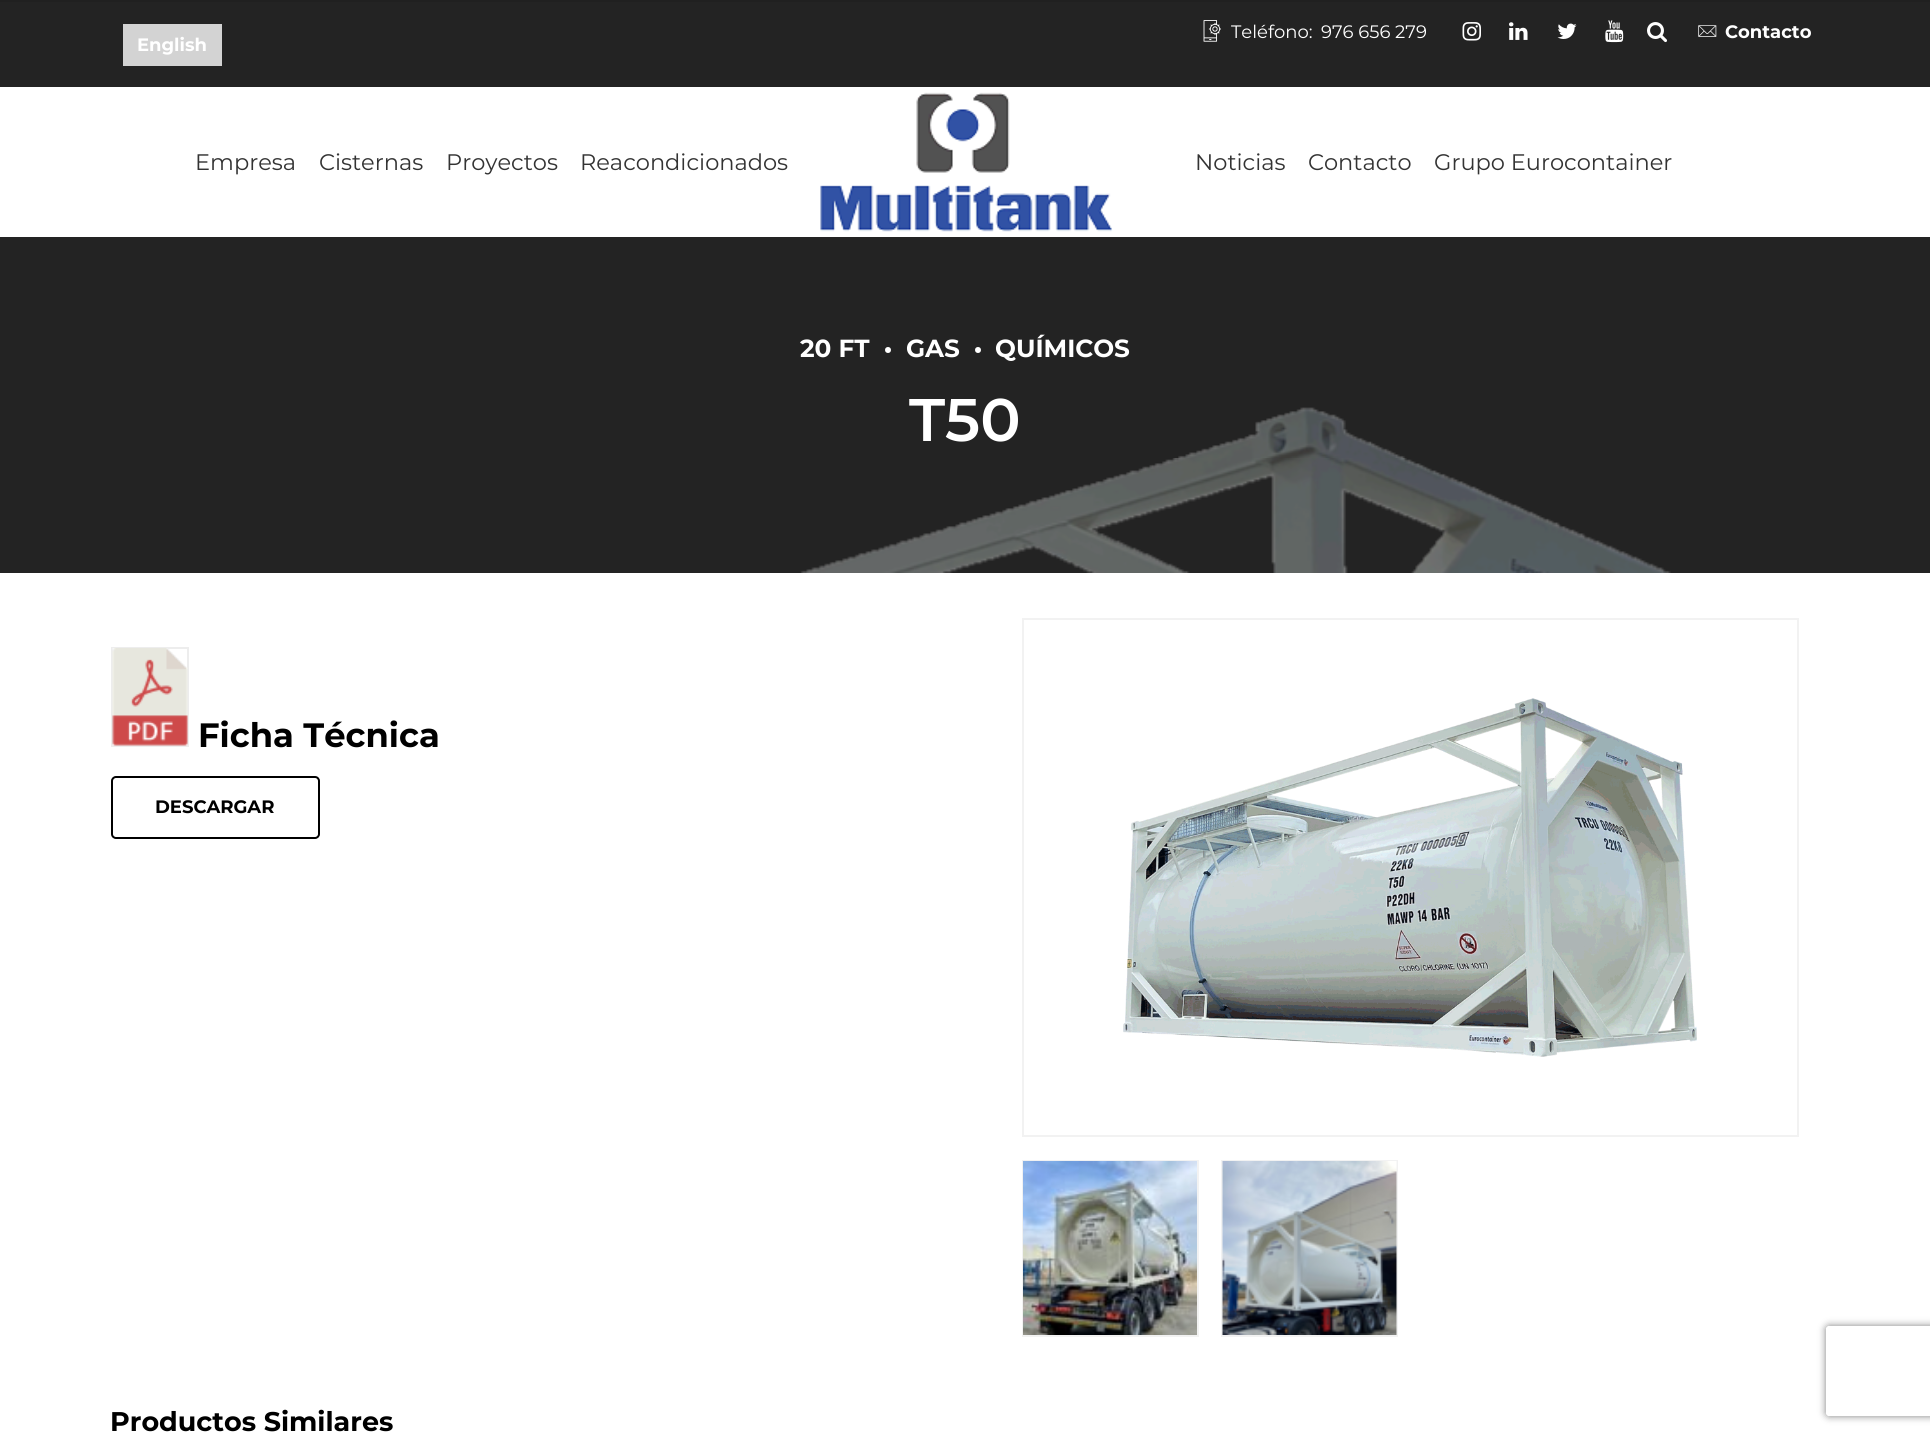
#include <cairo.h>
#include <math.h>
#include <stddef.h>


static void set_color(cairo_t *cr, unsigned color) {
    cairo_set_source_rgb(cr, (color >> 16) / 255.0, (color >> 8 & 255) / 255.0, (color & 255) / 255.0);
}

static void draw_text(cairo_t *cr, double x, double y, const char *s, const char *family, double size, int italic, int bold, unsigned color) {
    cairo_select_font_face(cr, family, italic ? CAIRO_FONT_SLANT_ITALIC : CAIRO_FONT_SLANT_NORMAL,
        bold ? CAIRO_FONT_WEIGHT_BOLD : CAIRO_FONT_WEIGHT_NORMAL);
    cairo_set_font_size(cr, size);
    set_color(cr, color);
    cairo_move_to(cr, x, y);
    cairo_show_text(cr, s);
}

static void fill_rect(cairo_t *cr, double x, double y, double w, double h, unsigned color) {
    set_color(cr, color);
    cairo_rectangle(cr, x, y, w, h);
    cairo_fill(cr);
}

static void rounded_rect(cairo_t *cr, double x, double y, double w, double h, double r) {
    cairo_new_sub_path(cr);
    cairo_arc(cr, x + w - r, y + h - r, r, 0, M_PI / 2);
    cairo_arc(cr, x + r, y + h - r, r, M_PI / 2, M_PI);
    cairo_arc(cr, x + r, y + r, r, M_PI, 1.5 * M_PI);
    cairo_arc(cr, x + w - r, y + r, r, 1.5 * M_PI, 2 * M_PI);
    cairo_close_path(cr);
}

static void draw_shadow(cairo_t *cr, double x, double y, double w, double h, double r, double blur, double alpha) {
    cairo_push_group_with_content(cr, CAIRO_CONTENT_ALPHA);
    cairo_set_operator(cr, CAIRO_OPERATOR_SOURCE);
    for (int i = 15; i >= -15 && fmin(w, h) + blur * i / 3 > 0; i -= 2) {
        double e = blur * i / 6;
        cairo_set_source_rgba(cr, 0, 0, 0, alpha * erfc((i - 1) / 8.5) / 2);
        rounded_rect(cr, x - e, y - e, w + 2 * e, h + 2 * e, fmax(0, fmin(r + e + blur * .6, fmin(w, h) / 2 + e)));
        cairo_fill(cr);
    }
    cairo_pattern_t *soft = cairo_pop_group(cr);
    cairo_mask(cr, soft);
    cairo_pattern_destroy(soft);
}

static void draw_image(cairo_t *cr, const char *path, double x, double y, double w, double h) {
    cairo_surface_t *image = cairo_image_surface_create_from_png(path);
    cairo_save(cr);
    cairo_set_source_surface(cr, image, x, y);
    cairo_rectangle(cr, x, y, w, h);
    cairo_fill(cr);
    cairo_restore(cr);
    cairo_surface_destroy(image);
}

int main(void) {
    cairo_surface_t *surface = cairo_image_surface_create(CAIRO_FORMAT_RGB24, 1930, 1437);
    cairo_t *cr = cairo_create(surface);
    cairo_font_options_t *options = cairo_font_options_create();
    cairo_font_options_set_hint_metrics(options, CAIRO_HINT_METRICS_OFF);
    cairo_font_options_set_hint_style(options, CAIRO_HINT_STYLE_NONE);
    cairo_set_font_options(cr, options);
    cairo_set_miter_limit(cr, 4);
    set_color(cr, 0xFFFFFF);
    cairo_paint(cr);
    fill_rect(cr, 0, 2, 1930, 85, 0x232323);
    fill_rect(cr, 0, 0, 1930, 2, 0x202020);
    draw_image(cr, "assets/img1.png", 1203, 20, 18, 22);
    draw_text(cr, 1231, 38, "Teléfono:", "Montserrat", 18, 0, 0, 0xFFFFFF);
    draw_text(cr, 1321, 38, "976 656 279", "Montserrat", 18, 0, 0, 0xFFFFFF);
    draw_image(cr, "assets/img2.png", 1462, 22, 19, 19);
    draw_image(cr, "assets/img3.png", 1509, 22, 19, 18);
    draw_image(cr, "assets/img4.png", 1557, 23, 20, 16);
    draw_image(cr, "assets/img5.png", 1605, 20, 19, 23);
    draw_image(cr, "assets/img6.png", 1647, 22, 20, 21);
    draw_image(cr, "assets/img7.png", 1698, 25, 19, 12);
    draw_text(cr, 1725, 38, "Contacto", "Montserrat", 18, 0, 1, 0xFFFFFF);
    fill_rect(cr, 123, 24, 99, 42, 0xD3D3D3);
    draw_text(cr, 137, 51, "English", "Montserrat", 18, 0, 1, 0xFFFFFF);
    draw_image(cr, "assets/img8.png", 820, 92, 293, 140);
    draw_text(cr, 195, 170, "Empresa", "Montserrat", 22.5, 0, 0, 0x333333);
    draw_text(cr, 319, 170, "Cisternas", "Montserrat", 22.5, 0, 0, 0x333333);
    draw_text(cr, 446, 170, "Proyectos", "Montserrat", 22.5, 0, 0, 0x333333);
    draw_text(cr, 580, 170, "Reacondicionados", "Montserrat", 22.5, 0, 0, 0x333333);
    draw_text(cr, 1195, 170, "Noticias", "Montserrat", 22.5, 0, 0, 0x333333);
    draw_text(cr, 1308, 170, "Contacto", "Montserrat", 22.5, 0, 0, 0x333333);
    draw_text(cr, 1434, 170, "Grupo Eurocontainer", "Montserrat", 22.5, 0, 0, 0x333333);
    fill_rect(cr, 0, 237, 1930, 336, 0x232323);
    draw_image(cr, "assets/img9.png", 800, 407, 871, 166);
    draw_text(cr, 800, 357, "20 FT", "Montserrat", 24.75, 0, 1, 0xFFFFFF);
    cairo_new_path(cr);
    cairo_arc(cr, 888, 350, 3, 0, 2 * M_PI);
    cairo_fill(cr);
    draw_text(cr, 906, 357, "GAS", "Montserrat", 24.75, 0, 1, 0xFFFFFF);
    cairo_new_path(cr);
    cairo_arc(cr, 978, 350, 3, 0, 2 * M_PI);
    cairo_fill(cr);
    draw_text(cr, 995, 357, "QUÍMICOS", "Montserrat", 24.75, 0, 1, 0xFFFFFF);
    draw_text(cr, 909, 441, "T50", "Montserrat SemiBold", 60, 0, 0, 0xFFFFFF);
    cairo_rectangle(cr, 112, 648, 76, 98);
    set_color(cr, 0xEDEDED);
    cairo_stroke(cr);
    draw_image(cr, "assets/img10.png", 112, 648, 76, 98);
    draw_text(cr, 198, 747, "Ficha Técnica", "Montserrat", 33.75, 0, 1, 0x000000);
    rounded_rect(cr, 112, 777, 207, 61, 4);
    cairo_stroke(cr);
    draw_text(cr, 155, 813, "DESCARGAR", "Montserrat", 18, 0, 1, 0x000000);
    cairo_rectangle(cr, 1023, 619, 775, 517);
    set_color(cr, 0xF2F2F2);
    cairo_stroke(cr);
    draw_image(cr, "assets/img11.png", 1123, 698, 574, 359);
    cairo_rectangle(cr, 1023, 1161, 175, 175);
    cairo_stroke(cr);
    draw_image(cr, "assets/img12.png", 1023, 1161, 174, 174);
    cairo_rectangle(cr, 1222, 1161, 175, 175);
    cairo_stroke(cr);
    draw_image(cr, "assets/img13.png", 1222, 1161, 175, 174);
    draw_text(cr, 110, 1431, "Productos Similares", "Montserrat", 27, 0, 1, 0x000000);
    cairo_save(cr);
    cairo_set_fill_rule(cr, CAIRO_FILL_RULE_EVEN_ODD);
    cairo_new_path(cr);
    cairo_move_to(cr, 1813, 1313);
    cairo_line_to(cr, 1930, 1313);
    cairo_line_to(cr, 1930, 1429);
    cairo_line_to(cr, 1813, 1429);
    cairo_close_path(cr);
    cairo_move_to(cr, 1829, 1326);
    cairo_line_to(cr, 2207, 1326);
    cairo_curve_to(cr, 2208.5, 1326, 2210, 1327.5, 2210, 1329);
    cairo_line_to(cr, 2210, 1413);
    cairo_curve_to(cr, 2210, 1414.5, 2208.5, 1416, 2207, 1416);
    cairo_line_to(cr, 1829, 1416);
    cairo_curve_to(cr, 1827.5, 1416, 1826, 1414.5, 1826, 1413);
    cairo_line_to(cr, 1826, 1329);
    cairo_curve_to(cr, 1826, 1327.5, 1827.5, 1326, 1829, 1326);
    cairo_close_path(cr);
    cairo_clip(cr);
    set_color(cr, 0x808080);
    draw_shadow(cr, 1826, 1326, 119, 90, 3, 4, 1);
    cairo_restore(cr);
    cairo_surface_write_to_png(surface, "output.png");
    cairo_font_options_destroy(options);
    cairo_destroy(cr);
    cairo_surface_destroy(surface);
    return 0;
}
